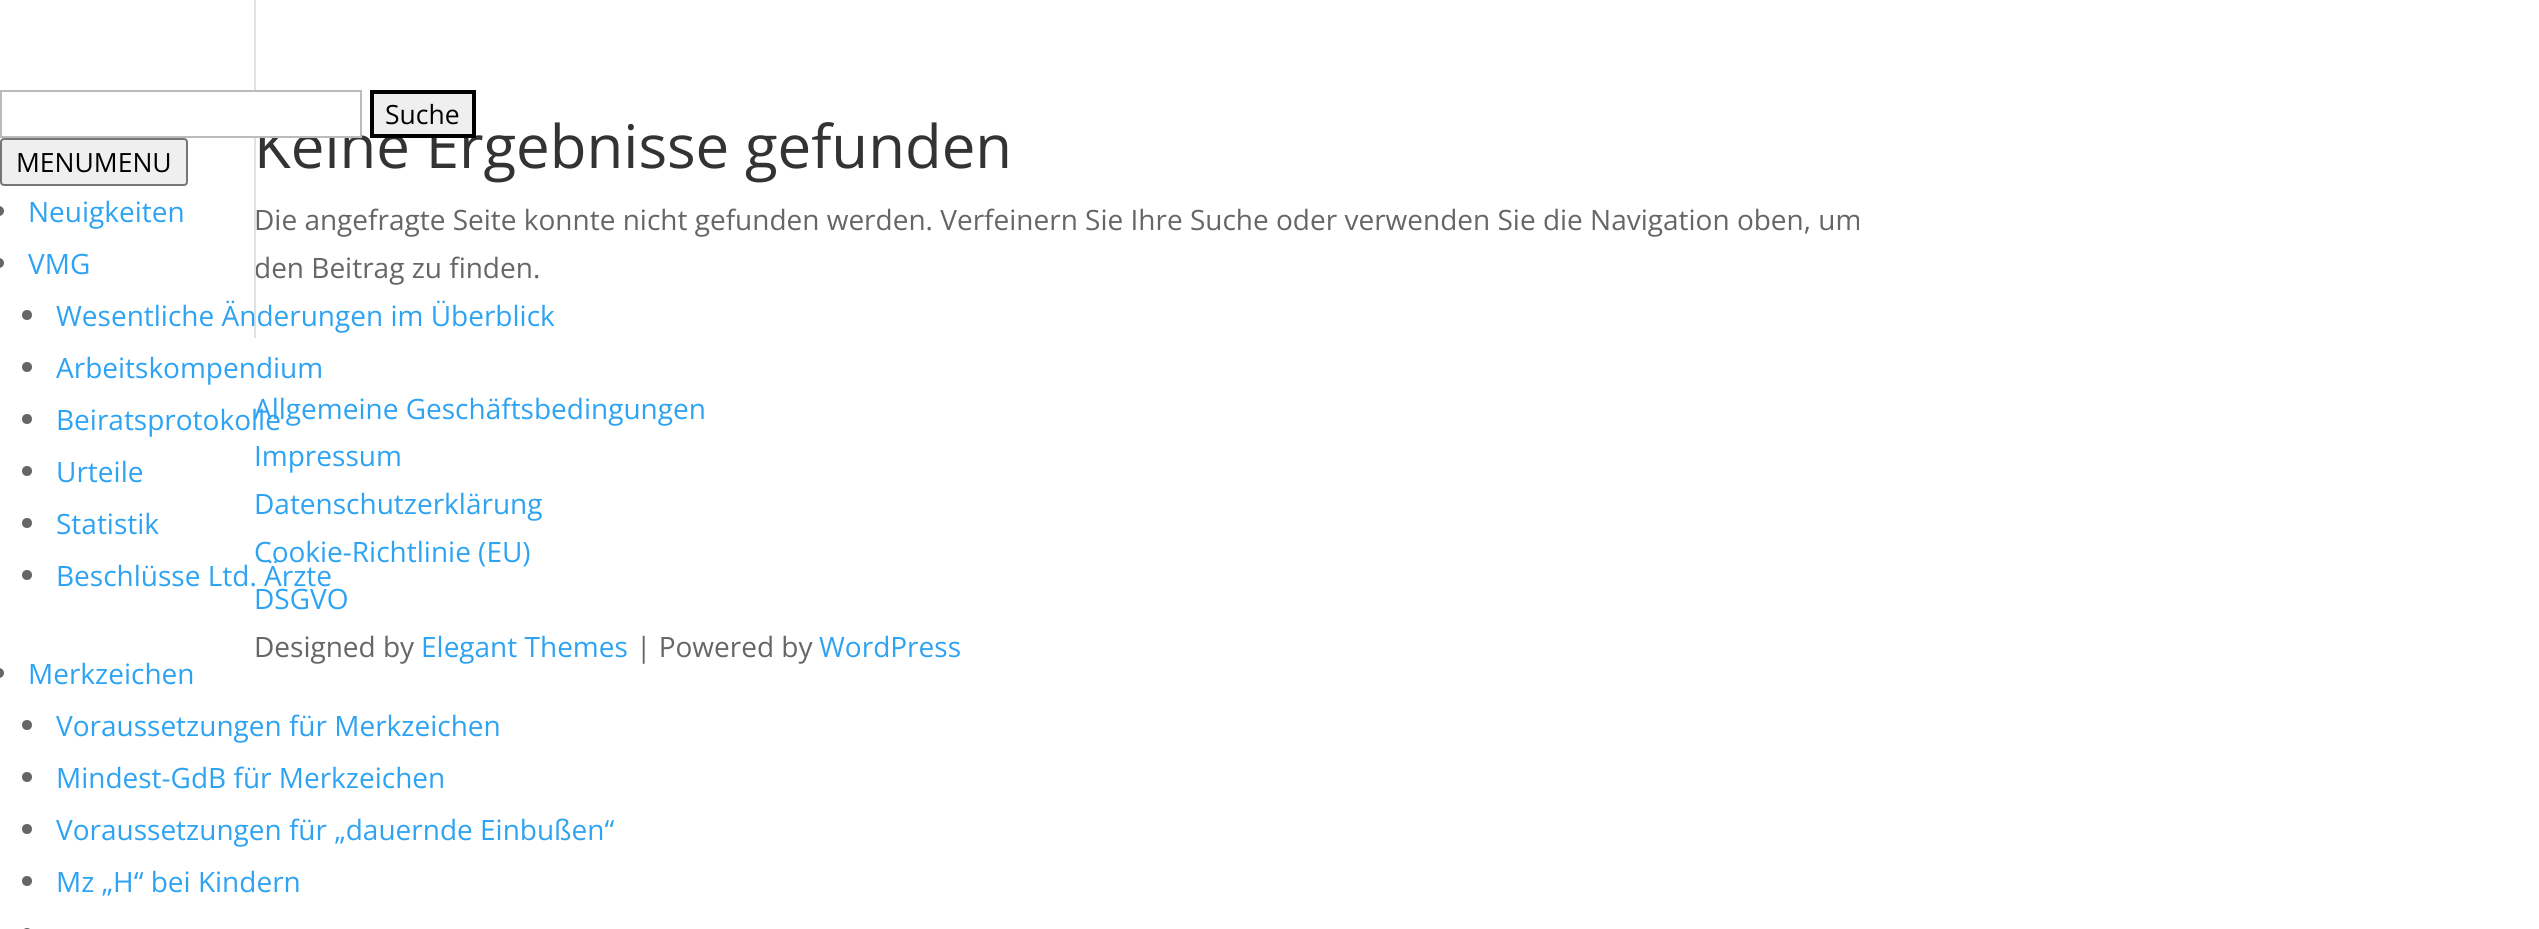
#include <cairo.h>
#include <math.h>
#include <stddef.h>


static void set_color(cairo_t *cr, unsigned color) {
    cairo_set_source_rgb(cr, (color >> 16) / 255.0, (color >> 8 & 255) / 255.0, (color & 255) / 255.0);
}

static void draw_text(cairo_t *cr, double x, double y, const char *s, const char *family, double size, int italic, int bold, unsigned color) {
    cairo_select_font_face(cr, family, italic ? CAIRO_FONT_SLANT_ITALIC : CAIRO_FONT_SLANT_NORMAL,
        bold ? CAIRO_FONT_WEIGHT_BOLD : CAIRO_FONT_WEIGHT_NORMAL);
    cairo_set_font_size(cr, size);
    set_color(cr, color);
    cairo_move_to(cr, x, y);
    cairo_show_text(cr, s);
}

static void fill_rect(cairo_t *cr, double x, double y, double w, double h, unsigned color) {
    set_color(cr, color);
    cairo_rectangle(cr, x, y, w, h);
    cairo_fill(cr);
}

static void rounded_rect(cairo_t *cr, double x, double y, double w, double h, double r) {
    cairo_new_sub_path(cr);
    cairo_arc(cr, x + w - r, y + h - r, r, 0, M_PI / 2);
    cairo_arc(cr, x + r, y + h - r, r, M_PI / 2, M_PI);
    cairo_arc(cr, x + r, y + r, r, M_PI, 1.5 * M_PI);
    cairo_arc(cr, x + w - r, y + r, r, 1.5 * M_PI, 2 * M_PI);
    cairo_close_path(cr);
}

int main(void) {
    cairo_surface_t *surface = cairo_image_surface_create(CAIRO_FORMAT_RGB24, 2539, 929);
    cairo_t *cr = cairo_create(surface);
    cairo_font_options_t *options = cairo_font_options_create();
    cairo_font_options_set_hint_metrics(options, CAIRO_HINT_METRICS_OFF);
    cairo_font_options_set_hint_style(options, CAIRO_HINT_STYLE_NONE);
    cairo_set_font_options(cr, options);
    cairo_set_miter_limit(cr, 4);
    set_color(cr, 0xFFFFFF);
    cairo_paint(cr);
    draw_text(cr, 254, 278, "den Beitrag zu finden.", "Open Sans", 28, 0, 0, 0x666666);
    fill_rect(cr, 254, 0, 2, 338, 0xE2E2E2);
    draw_text(cr, 254, 168, "Keine Ergebnisse gefunden", "Open Sans", 60, 0, 0, 0x333333);
    fill_rect(cr, 254, 92, 106, 44, 0xFFFFFF);
    cairo_rectangle(cr, 1, 91, 360, 46);
    set_color(cr, 0xBBBBBB);
    cairo_stroke(cr);
    set_color(cr, 0xEFEFEF);
    cairo_rectangle(cr, 372, 92, 102, 44);
    cairo_fill_preserve(cr);
    set_color(cr, 0x000000);
    cairo_set_line_width(cr, 4);
    cairo_stroke(cr);
    draw_text(cr, 385, 124, "Suche", "Open Sans", 26.5, 0, 0, 0x000000);
    set_color(cr, 0xEFEFEF);
    rounded_rect(cr, 1, 139, 186, 46, 3);
    cairo_fill_preserve(cr);
    set_color(cr, 0x767676);
    cairo_set_line_width(cr, 2);
    cairo_stroke(cr);
    draw_text(cr, 16, 172, "MENUMENU", "Open Sans", 26.5, 0, 0, 0x000000);
    set_color(cr, 0x666666);
    rounded_rect(cr, -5, 206, 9, 10, 5);
    cairo_fill(cr);
    draw_text(cr, 28, 222, "Neuigkeiten", "Open Sans", 28, 0, 0, 0x2EA3F2);
    set_color(cr, 0x666666);
    rounded_rect(cr, -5, 258, 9, 10, 5);
    cairo_fill(cr);
    draw_text(cr, 28, 274, "VMG", "Open Sans", 28, 0, 0, 0x2EA3F2);
    set_color(cr, 0x666666);
    cairo_new_path(cr);
    cairo_arc(cr, 27, 315, 5, 0, 2 * M_PI);
    cairo_fill(cr);
    draw_text(cr, 56, 326, "Wesentliche Änderungen im Überblick", "Open Sans", 28, 0, 0, 0x2EA3F2);
    set_color(cr, 0x666666);
    cairo_new_path(cr);
    cairo_arc(cr, 27, 367, 5, 0, 2 * M_PI);
    cairo_fill(cr);
    draw_text(cr, 56, 378, "Arbeitskompendium", "Open Sans", 28, 0, 0, 0x2EA3F2);
    set_color(cr, 0x666666);
    cairo_new_path(cr);
    cairo_arc(cr, 27, 419, 5, 0, 2 * M_PI);
    cairo_fill(cr);
    draw_text(cr, 254, 419, "Allgemeine Geschäftsbedingungen", "Open Sans", 28, 0, 0, 0x2EA3F2);
    draw_text(cr, 56, 430, "Beiratsprotokolle", "Open Sans", 28, 0, 0, 0x2EA3F2);
    set_color(cr, 0x666666);
    cairo_new_path(cr);
    cairo_arc(cr, 27, 471, 5, 0, 2 * M_PI);
    cairo_fill(cr);
    draw_text(cr, 56, 482, "Urteile", "Open Sans", 28, 0, 0, 0x2EA3F2);
    set_color(cr, 0x666666);
    cairo_new_path(cr);
    cairo_arc(cr, 27, 523, 5, 0, 2 * M_PI);
    cairo_fill(cr);
    draw_text(cr, 56, 534, "Statistik", "Open Sans", 28, 0, 0, 0x2EA3F2);
    set_color(cr, 0x666666);
    cairo_new_path(cr);
    cairo_arc(cr, 27, 575, 5, 0, 2 * M_PI);
    cairo_fill(cr);
    draw_text(cr, 56, 586, "Beschlüsse Ltd. Ärzte", "Open Sans", 28, 0, 0, 0x2EA3F2);
    set_color(cr, 0x666666);
    rounded_rect(cr, -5, 668, 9, 10, 5);
    cairo_fill(cr);
    draw_text(cr, 28, 684, "Merkzeichen", "Open Sans", 28, 0, 0, 0x2EA3F2);
    set_color(cr, 0x666666);
    cairo_new_path(cr);
    cairo_arc(cr, 27, 725, 5, 0, 2 * M_PI);
    cairo_fill(cr);
    draw_text(cr, 56, 736, "Voraussetzungen für Merkzeichen", "Open Sans", 28, 0, 0, 0x2EA3F2);
    set_color(cr, 0x666666);
    cairo_new_path(cr);
    cairo_arc(cr, 27, 777, 5, 0, 2 * M_PI);
    cairo_fill(cr);
    draw_text(cr, 56, 788, "Mindest-GdB für Merkzeichen", "Open Sans", 28, 0, 0, 0x2EA3F2);
    set_color(cr, 0x666666);
    cairo_new_path(cr);
    cairo_arc(cr, 27, 829, 5, 0, 2 * M_PI);
    cairo_fill(cr);
    draw_text(cr, 56, 840, "Voraussetzungen für „dauernde Einbußen“", "Open Sans", 28, 0, 0, 0x2EA3F2);
    set_color(cr, 0x666666);
    cairo_new_path(cr);
    cairo_arc(cr, 27, 881, 5, 0, 2 * M_PI);
    cairo_fill(cr);
    draw_text(cr, 56, 892, "Mz „H“ bei Kindern", "Open Sans", 28, 0, 0, 0x2EA3F2);
    set_color(cr, 0x666666);
    rounded_rect(cr, 22, 928, 10, 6, 5);
    cairo_fill(cr);
    draw_text(cr, 254, 230, "Die angefragte Seite konnte nicht gefunden werden. Verfeinern Sie Ihre Suche oder verwenden Sie die Navigation oben, um", "Open Sans", 28, 0, 0, 0x666666);
    draw_text(cr, 254, 466, "Impressum", "Open Sans", 28, 0, 0, 0x2EA3F2);
    draw_text(cr, 254, 514, "Datenschutzerklärung", "Open Sans", 28, 0, 0, 0x2EA3F2);
    draw_text(cr, 254, 562, "Cookie-Richtlinie (EU)", "Open Sans", 28, 0, 0, 0x2EA3F2);
    draw_text(cr, 254, 609, "DSGVO", "Open Sans", 28, 0, 0, 0x2EA3F2);
    draw_text(cr, 254, 657, "Designed by", "Open Sans", 28, 0, 0, 0x666666);
    draw_text(cr, 421, 657, "Elegant Themes", "Open Sans", 28, 0, 0, 0x2EA3F2);
    draw_text(cr, 636, 657, "| Powered by", "Open Sans", 28, 0, 0, 0x666666);
    draw_text(cr, 819, 657, "WordPress", "Open Sans", 28, 0, 0, 0x2EA3F2);
    cairo_surface_write_to_png(surface, "output.png");
    cairo_font_options_destroy(options);
    cairo_destroy(cr);
    cairo_surface_destroy(surface);
    return 0;
}
